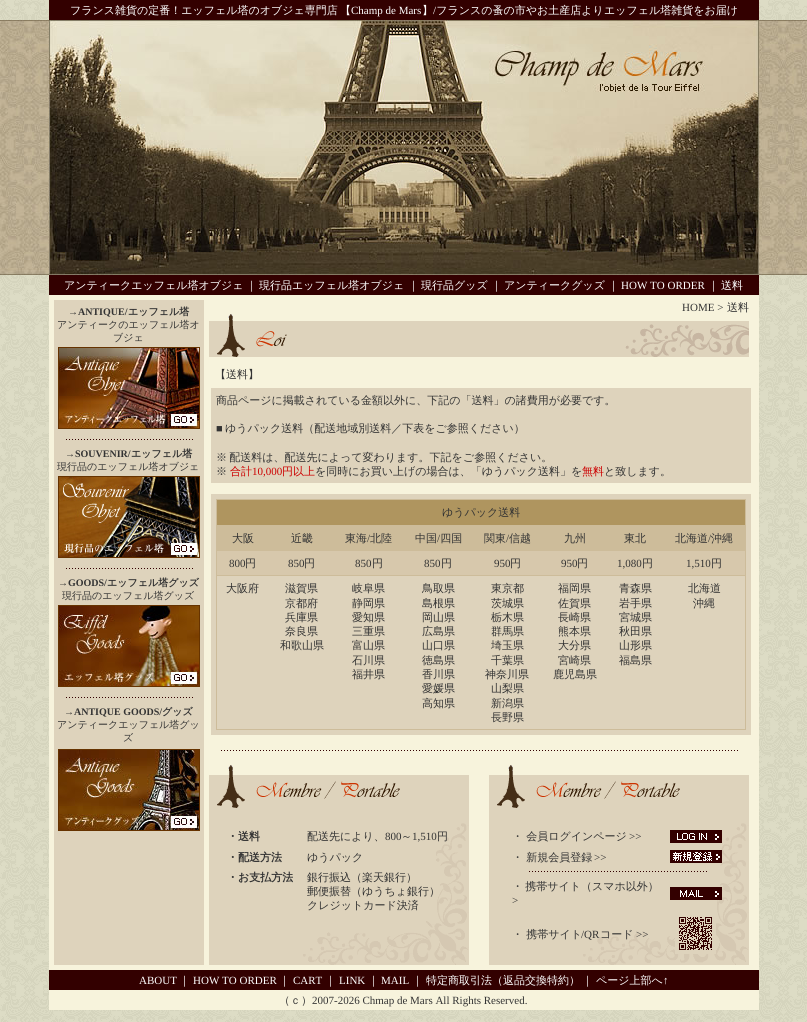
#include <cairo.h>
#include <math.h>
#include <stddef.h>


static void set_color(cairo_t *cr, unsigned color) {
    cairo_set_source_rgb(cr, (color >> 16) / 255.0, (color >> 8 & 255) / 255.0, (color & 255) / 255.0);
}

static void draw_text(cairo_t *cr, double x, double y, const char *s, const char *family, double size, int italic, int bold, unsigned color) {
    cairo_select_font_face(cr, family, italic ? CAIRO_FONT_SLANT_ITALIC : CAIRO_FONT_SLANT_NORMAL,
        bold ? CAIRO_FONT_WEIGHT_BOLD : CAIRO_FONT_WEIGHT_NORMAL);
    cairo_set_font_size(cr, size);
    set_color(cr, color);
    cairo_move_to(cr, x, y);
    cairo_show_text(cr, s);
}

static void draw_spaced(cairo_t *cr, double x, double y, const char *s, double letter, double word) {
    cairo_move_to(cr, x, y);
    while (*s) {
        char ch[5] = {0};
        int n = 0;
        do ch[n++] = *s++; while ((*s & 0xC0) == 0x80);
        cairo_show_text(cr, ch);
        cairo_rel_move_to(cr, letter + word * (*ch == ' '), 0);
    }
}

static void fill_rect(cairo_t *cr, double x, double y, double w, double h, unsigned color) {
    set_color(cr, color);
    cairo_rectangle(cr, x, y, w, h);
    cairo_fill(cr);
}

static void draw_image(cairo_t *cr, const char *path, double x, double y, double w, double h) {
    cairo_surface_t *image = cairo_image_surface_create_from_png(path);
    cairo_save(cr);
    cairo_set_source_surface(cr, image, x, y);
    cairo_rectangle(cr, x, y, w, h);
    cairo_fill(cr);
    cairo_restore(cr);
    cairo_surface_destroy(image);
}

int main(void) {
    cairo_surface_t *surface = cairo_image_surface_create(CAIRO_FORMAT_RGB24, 807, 1022);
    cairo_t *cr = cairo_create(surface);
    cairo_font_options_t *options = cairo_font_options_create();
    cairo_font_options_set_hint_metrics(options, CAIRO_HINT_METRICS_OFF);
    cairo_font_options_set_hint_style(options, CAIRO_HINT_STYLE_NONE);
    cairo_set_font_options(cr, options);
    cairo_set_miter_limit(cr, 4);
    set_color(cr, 0xFFFFFF);
    cairo_paint(cr);
    draw_image(cr, "assets/img1.png", 0, 0, 807, 1022);
    fill_rect(cr, 49, 0, 710, 20, 0x330000);
    draw_text(cr, 70, 14, "フランス雑貨の定番！エッフェル塔のオブジェ専門店", "WenQuanYi Zen Hei Medium", 11, 0, 0, 0xFFFFFF);
    draw_text(cr, 340, 14, "【", "WenQuanYi Zen Hei Medium", 11, 0, 0, 0xFFFFFF);
    draw_text(cr, 351, 14, "Champ de Mars", "Liberation Serif", 11, 0, 0, 0xFFFFFF);
    draw_text(cr, 422, 14, "】 フランスの蚤の市やお土産店よりエッフェル塔雑貨をお届け", "WenQuanYi Zen Hei Medium", 11, 0, 0, 0xFFFFFF);
    draw_text(cr, 433, 14, "/", "Liberation Serif", 11, 0, 0, 0xFFFFFF);
    draw_image(cr, "assets/img2.png", 0, 20, 807, 255);
    draw_image(cr, "assets/img3.png", 49, 20, 710, 255);
    fill_rect(cr, 49, 275, 710, 20, 0x330000);
    draw_text(cr, 64, 289, "アンティークエッフェル塔オブジェ", "WenQuanYi Zen Hei Medium", 11, 0, 0, 0xFFFFFF);
    draw_text(cr, 246, 289, "｜", "WenQuanYi Zen Hei Medium", 11, 0, 0, 0xFFFFFF);
    draw_text(cr, 259, 289, "現行品エッフェル塔オブジェ", "WenQuanYi Zen Hei Medium", 11, 0, 0, 0xFFFFFF);
    draw_text(cr, 408, 289, "｜", "WenQuanYi Zen Hei Medium", 11, 0, 0, 0xFFFFFF);
    draw_text(cr, 421, 289, "現行品グッズ", "WenQuanYi Zen Hei Medium", 11, 0, 0, 0xFFFFFF);
    draw_text(cr, 491, 289, "｜", "WenQuanYi Zen Hei Medium", 11, 0, 0, 0xFFFFFF);
    draw_text(cr, 504, 289, "アンティークグッズ", "WenQuanYi Zen Hei Medium", 11, 0, 0, 0xFFFFFF);
    draw_text(cr, 608, 289, "｜", "WenQuanYi Zen Hei Medium", 11, 0, 0, 0xFFFFFF);
    draw_text(cr, 621, 289, "HOW TO ORDER", "Liberation Serif", 11, 0, 0, 0xFFFFFF);
    draw_text(cr, 708, 289, "｜", "WenQuanYi Zen Hei Medium", 11, 0, 0, 0xFFFFFF);
    draw_text(cr, 721, 289, "送料", "WenQuanYi Zen Hei Medium", 11, 0, 0, 0xFFFFFF);
    fill_rect(cr, 49, 295, 710, 675, 0xF7F3DC);
    fill_rect(cr, 54, 300, 150, 665, 0xDED3BC);
    draw_text(cr, 68, 315, "→", "Liberation Serif", 10, 0, 0, 0x333333);
    draw_text(cr, 78, 315, "ANTIQUE/", "Liberation Serif", 10, 0, 1, 0x333333);
    draw_text(cr, 128, 315, "エッフェル塔", "WenQuanYi Zen Hei", 10, 0, 1, 0x333333);
    draw_text(cr, 57, 328, "アンティークのエッフェル塔オ", "WenQuanYi Zen Hei Medium", 10, 0, 0, 0x333333);
    draw_text(cr, 113, 341, "ブジェ", "WenQuanYi Zen Hei Medium", 10, 0, 0, 0x333333);
    cairo_rectangle(cr, 58.5, 347.5, 141, 81);
    set_color(cr, 0x663300);
    cairo_set_line_width(cr, 1);
    cairo_stroke(cr);
    draw_image(cr, "assets/img4.png", 59, 348, 140, 80);
    draw_image(cr, "assets/img5.png", 66, 439, 127, 1);
    draw_text(cr, 65, 457, "→", "Liberation Serif", 10, 0, 0, 0x333333);
    draw_text(cr, 75, 457, "SOUVENIR/", "Liberation Serif", 10, 0, 1, 0x333333);
    draw_text(cr, 131, 457, "エッフェル塔", "WenQuanYi Zen Hei", 10, 0, 1, 0x333333);
    draw_text(cr, 57, 470, "現行品のエッフェル塔オブジェ", "WenQuanYi Zen Hei Medium", 10, 0, 0, 0x333333);
    cairo_rectangle(cr, 58.5, 476.5, 141, 81);
    set_color(cr, 0x663300);
    cairo_stroke(cr);
    draw_image(cr, "assets/img6.png", 59, 477, 140, 80);
    draw_image(cr, "assets/img5.png", 66, 568, 127, 1);
    draw_text(cr, 58, 586, "→", "Liberation Serif", 10, 0, 0, 0x333333);
    draw_text(cr, 68, 586, "GOODS/", "Liberation Serif", 10, 0, 1, 0x333333);
    draw_text(cr, 107, 586, "エッフェル塔グッズ", "WenQuanYi Zen Hei", 10, 0, 1, 0x333333);
    draw_text(cr, 62, 599, "現行品のエッフェル塔グッズ", "WenQuanYi Zen Hei Medium", 10, 0, 0, 0x333333);
    cairo_rectangle(cr, 58.5, 605.5, 141, 81);
    set_color(cr, 0x663300);
    cairo_stroke(cr);
    draw_image(cr, "assets/img7.png", 59, 606, 140, 80);
    draw_image(cr, "assets/img5.png", 66, 697, 127, 1);
    draw_text(cr, 64, 715, "→", "Liberation Serif", 10, 0, 0, 0x333333);
    draw_text(cr, 74, 715, "ANTIQUE GOODS/", "Liberation Serif", 10, 0, 1, 0x333333);
    draw_text(cr, 162, 715, "グッズ", "WenQuanYi Zen Hei", 10, 0, 1, 0x333333);
    draw_text(cr, 57, 728, "アンティークエッフェル塔グッ", "WenQuanYi Zen Hei Medium", 10, 0, 0, 0x333333);
    draw_text(cr, 123, 741, "ズ", "WenQuanYi Zen Hei Medium", 10, 0, 0, 0x333333);
    cairo_rectangle(cr, 58.5, 749.5, 141, 81);
    set_color(cr, 0x663300);
    cairo_stroke(cr);
    draw_image(cr, "assets/img8.png", 59, 750, 140, 80);
    draw_text(cr, 682, 311, "HOME >", "Liberation Serif", 11, 0, 0, 0x333333);
    draw_text(cr, 727, 311, "送料", "WenQuanYi Zen Hei Medium", 11, 0, 0, 0x333333);
    draw_image(cr, "assets/img9.png", 209, 314, 540, 43);
    draw_text(cr, 215, 378, "【送料】", "WenQuanYi Zen Hei Medium", 11, 0, 0, 0x333333);
    fill_rect(cr, 211, 388, 540, 95, 0xDED3BC);
    draw_text(cr, 216, 404, "商品ページに掲載されている金額以外に、下記の「送料」の諸費用が必要です。", "WenQuanYi Zen Hei Medium", 11, 0, 0, 0x333333);
    draw_text(cr, 216, 432, "■", "Liberation Serif", 11, 0, 0, 0x333333);
    draw_text(cr, 225, 432, "ゆうパック送料（配送地域別送料／下表をご参照ください）", "WenQuanYi Zen Hei Medium", 11, 0, 0, 0x333333);
    draw_spaced(cr, 216, 461, "※ 配送料は、配送先によって変わります。下記をご参照ください。", 0, -1);
    draw_text(cr, 216, 475, "※", "WenQuanYi Zen Hei Medium", 11, 0, 0, 0x333333);
    draw_text(cr, 230, 475, "合計", "WenQuanYi Zen Hei Medium", 11, 0, 0, 0xCC0000);
    draw_text(cr, 252, 475, "10,000", "Liberation Serif", 11, 0, 0, 0xCC0000);
    draw_text(cr, 282, 475, "円以上", "WenQuanYi Zen Hei Medium", 11, 0, 0, 0xCC0000);
    draw_text(cr, 315, 475, "を同時にお買い上げの場合は、「ゆうパック送料」を", "WenQuanYi Zen Hei Medium", 11, 0, 0, 0x333333);
    draw_text(cr, 582, 475, "無料", "WenQuanYi Zen Hei Medium", 11, 0, 0, 0xCC0000);
    draw_text(cr, 604, 475, "と致します。", "WenQuanYi Zen Hei Medium", 11, 0, 0, 0x333333);
    fill_rect(cr, 211, 494, 540, 241, 0xDED3BC);
    fill_rect(cr, 216, 499, 530, 231, 0xCDBC9A);
    fill_rect(cr, 217, 500, 528, 25, 0xAF955F);
    draw_text(cr, 442, 516, "ゆうパック送料", "WenQuanYi Zen Hei Medium", 11, 0, 0, 0x333333);
    draw_text(cr, 232, 542, "大阪", "WenQuanYi Zen Hei Medium", 11, 0, 0, 0x333333);
    draw_text(cr, 291, 542, "近畿", "WenQuanYi Zen Hei Medium", 11, 0, 0, 0x333333);
    draw_text(cr, 345, 542, "東海", "WenQuanYi Zen Hei Medium", 11, 0, 0, 0x333333);
    draw_text(cr, 367, 542, "/", "Liberation Serif", 11, 0, 0, 0x333333);
    draw_text(cr, 370, 542, "北陸", "WenQuanYi Zen Hei Medium", 11, 0, 0, 0x333333);
    draw_text(cr, 415, 542, "中国 四国", "WenQuanYi Zen Hei Medium", 11, 0, 0, 0x333333);
    draw_text(cr, 437, 542, "/", "Liberation Serif", 11, 0, 0, 0x333333);
    draw_text(cr, 484, 542, "関東", "WenQuanYi Zen Hei Medium", 11, 0, 0, 0x333333);
    draw_text(cr, 506, 542, "/", "Liberation Serif", 11, 0, 0, 0x333333);
    draw_text(cr, 509, 542, "信越", "WenQuanYi Zen Hei Medium", 11, 0, 0, 0x333333);
    draw_text(cr, 564, 542, "九州", "WenQuanYi Zen Hei Medium", 11, 0, 0, 0x333333);
    draw_text(cr, 624, 542, "東北", "WenQuanYi Zen Hei Medium", 11, 0, 0, 0x333333);
    draw_text(cr, 675, 542, "北海道", "WenQuanYi Zen Hei Medium", 11, 0, 0, 0x333333);
    draw_text(cr, 708, 542, "/", "Liberation Serif", 11, 0, 0, 0x333333);
    draw_text(cr, 711, 542, "沖縄", "WenQuanYi Zen Hei Medium", 11, 0, 0, 0x333333);
    fill_rect(cr, 217, 551, 528, 24, 0xD7C8AC);
    draw_text(cr, 229, 567, "800", "Liberation Serif", 11, 0, 0, 0x333333);
    draw_text(cr, 245, 567, "円", "WenQuanYi Zen Hei Medium", 11, 0, 0, 0x333333);
    draw_text(cr, 288, 567, "850", "Liberation Serif", 11, 0, 0, 0x333333);
    draw_text(cr, 304, 567, "円", "WenQuanYi Zen Hei Medium", 11, 0, 0, 0x333333);
    draw_text(cr, 355, 567, "850", "Liberation Serif", 11, 0, 0, 0x333333);
    draw_text(cr, 372, 567, "円", "WenQuanYi Zen Hei Medium", 11, 0, 0, 0x333333);
    draw_text(cr, 424, 567, "850", "Liberation Serif", 11, 0, 0, 0x333333);
    draw_text(cr, 441, 567, "円", "WenQuanYi Zen Hei Medium", 11, 0, 0, 0x333333);
    draw_text(cr, 494, 567, "950", "Liberation Serif", 11, 0, 0, 0x333333);
    draw_text(cr, 510, 567, "円", "WenQuanYi Zen Hei Medium", 11, 0, 0, 0x333333);
    draw_text(cr, 561, 567, "950", "Liberation Serif", 11, 0, 0, 0x333333);
    draw_text(cr, 577, 567, "円", "WenQuanYi Zen Hei Medium", 11, 0, 0, 0x333333);
    draw_text(cr, 617, 567, "1,080", "Liberation Serif", 11, 0, 0, 0x333333);
    draw_text(cr, 642, 567, "円", "WenQuanYi Zen Hei Medium", 11, 0, 0, 0x333333);
    draw_text(cr, 686, 567, "1,510", "Liberation Serif", 11, 0, 0, 0x333333);
    draw_text(cr, 711, 567, "円", "WenQuanYi Zen Hei Medium", 11, 0, 0, 0x333333);
    fill_rect(cr, 217, 576, 528, 153, 0xDED3BC);
    draw_text(cr, 226, 592, "大阪府", "WenQuanYi Zen Hei Medium", 11, 0, 0, 0x333333);
    draw_text(cr, 285, 592, "滋賀県", "WenQuanYi Zen Hei Medium", 11, 0, 0, 0x333333);
    draw_text(cr, 285, 607, "京都府", "WenQuanYi Zen Hei Medium", 11, 0, 0, 0x333333);
    draw_text(cr, 285, 621, "兵庫県", "WenQuanYi Zen Hei Medium", 11, 0, 0, 0x333333);
    draw_text(cr, 285, 635, "奈良県", "WenQuanYi Zen Hei Medium", 11, 0, 0, 0x333333);
    draw_text(cr, 280, 649, "和歌山県", "WenQuanYi Zen Hei Medium", 11, 0, 0, 0x333333);
    draw_text(cr, 352, 592, "岐阜県", "WenQuanYi Zen Hei Medium", 11, 0, 0, 0x333333);
    draw_text(cr, 352, 607, "静岡県", "WenQuanYi Zen Hei Medium", 11, 0, 0, 0x333333);
    draw_text(cr, 352, 621, "愛知県", "WenQuanYi Zen Hei Medium", 11, 0, 0, 0x333333);
    draw_text(cr, 352, 635, "三重県", "WenQuanYi Zen Hei Medium", 11, 0, 0, 0x333333);
    draw_text(cr, 352, 649, "富山県", "WenQuanYi Zen Hei Medium", 11, 0, 0, 0x333333);
    draw_text(cr, 352, 664, "石川県", "WenQuanYi Zen Hei Medium", 11, 0, 0, 0x333333);
    draw_text(cr, 352, 678, "福井県", "WenQuanYi Zen Hei Medium", 11, 0, 0, 0x333333);
    draw_text(cr, 422, 592, "鳥取県", "WenQuanYi Zen Hei Medium", 11, 0, 0, 0x333333);
    draw_text(cr, 422, 607, "島根県", "WenQuanYi Zen Hei Medium", 11, 0, 0, 0x333333);
    draw_text(cr, 422, 621, "岡山県", "WenQuanYi Zen Hei Medium", 11, 0, 0, 0x333333);
    draw_text(cr, 422, 635, "広島県", "WenQuanYi Zen Hei Medium", 11, 0, 0, 0x333333);
    draw_text(cr, 422, 649, "山口県", "WenQuanYi Zen Hei Medium", 11, 0, 0, 0x333333);
    draw_text(cr, 422, 664, "徳島県", "WenQuanYi Zen Hei Medium", 11, 0, 0, 0x333333);
    draw_text(cr, 422, 678, "香川県", "WenQuanYi Zen Hei Medium", 11, 0, 0, 0x333333);
    draw_text(cr, 422, 692, "愛媛県", "WenQuanYi Zen Hei Medium", 11, 0, 0, 0x333333);
    draw_text(cr, 422, 707, "高知県", "WenQuanYi Zen Hei Medium", 11, 0, 0, 0x333333);
    draw_text(cr, 491, 592, "東京都", "WenQuanYi Zen Hei Medium", 11, 0, 0, 0x333333);
    draw_text(cr, 491, 607, "茨城県", "WenQuanYi Zen Hei Medium", 11, 0, 0, 0x333333);
    draw_text(cr, 491, 621, "栃木県", "WenQuanYi Zen Hei Medium", 11, 0, 0, 0x333333);
    draw_text(cr, 491, 635, "群馬県", "WenQuanYi Zen Hei Medium", 11, 0, 0, 0x333333);
    draw_text(cr, 491, 649, "埼玉県", "WenQuanYi Zen Hei Medium", 11, 0, 0, 0x333333);
    draw_text(cr, 491, 664, "千葉県", "WenQuanYi Zen Hei Medium", 11, 0, 0, 0x333333);
    draw_text(cr, 485, 678, "神奈川県", "WenQuanYi Zen Hei Medium", 11, 0, 0, 0x333333);
    draw_text(cr, 491, 692, "山梨県", "WenQuanYi Zen Hei Medium", 11, 0, 0, 0x333333);
    draw_text(cr, 491, 707, "新潟県", "WenQuanYi Zen Hei Medium", 11, 0, 0, 0x333333);
    draw_text(cr, 491, 721, "長野県", "WenQuanYi Zen Hei Medium", 11, 0, 0, 0x333333);
    draw_text(cr, 558, 592, "福岡県", "WenQuanYi Zen Hei Medium", 11, 0, 0, 0x333333);
    draw_text(cr, 558, 607, "佐賀県", "WenQuanYi Zen Hei Medium", 11, 0, 0, 0x333333);
    draw_text(cr, 558, 621, "長崎県", "WenQuanYi Zen Hei Medium", 11, 0, 0, 0x333333);
    draw_text(cr, 558, 635, "熊本県", "WenQuanYi Zen Hei Medium", 11, 0, 0, 0x333333);
    draw_text(cr, 558, 649, "大分県", "WenQuanYi Zen Hei Medium", 11, 0, 0, 0x333333);
    draw_text(cr, 558, 664, "宮崎県", "WenQuanYi Zen Hei Medium", 11, 0, 0, 0x333333);
    draw_text(cr, 553, 678, "鹿児島県", "WenQuanYi Zen Hei Medium", 11, 0, 0, 0x333333);
    draw_text(cr, 619, 592, "青森県", "WenQuanYi Zen Hei Medium", 11, 0, 0, 0x333333);
    draw_text(cr, 619, 607, "岩手県", "WenQuanYi Zen Hei Medium", 11, 0, 0, 0x333333);
    draw_text(cr, 619, 621, "宮城県", "WenQuanYi Zen Hei Medium", 11, 0, 0, 0x333333);
    draw_text(cr, 619, 635, "秋田県", "WenQuanYi Zen Hei Medium", 11, 0, 0, 0x333333);
    draw_text(cr, 619, 649, "山形県", "WenQuanYi Zen Hei Medium", 11, 0, 0, 0x333333);
    draw_text(cr, 619, 664, "福島県", "WenQuanYi Zen Hei Medium", 11, 0, 0, 0x333333);
    draw_text(cr, 688, 592, "北海道", "WenQuanYi Zen Hei Medium", 11, 0, 0, 0x333333);
    draw_text(cr, 693, 607, "沖縄", "WenQuanYi Zen Hei Medium", 11, 0, 0, 0x333333);
    draw_image(cr, "assets/img10.png", 221, 750, 517, 1);
    draw_image(cr, "assets/img11.png", 209, 765, 260, 200);
    draw_text(cr, 227, 840, "・送料", "WenQuanYi Zen Hei", 11, 0, 1, 0x333333);
    draw_text(cr, 307, 840, "配送先により、", "WenQuanYi Zen Hei Medium", 11, 0, 0, 0x333333);
    draw_text(cr, 385, 840, "800", "Liberation Serif", 11, 0, 0, 0x333333);
    draw_text(cr, 401, 840, "～", "WenQuanYi Zen Hei Medium", 11, 0, 0, 0x333333);
    draw_text(cr, 412, 840, "1,510", "Liberation Serif", 11, 0, 0, 0x333333);
    draw_text(cr, 437, 840, "円", "WenQuanYi Zen Hei Medium", 11, 0, 0, 0x333333);
    draw_text(cr, 227, 861, "・配送方法", "WenQuanYi Zen Hei", 11, 0, 1, 0x333333);
    draw_text(cr, 307, 861, "ゆうパック", "WenQuanYi Zen Hei Medium", 11, 0, 0, 0x333333);
    draw_text(cr, 227, 881, "・お支払方法", "WenQuanYi Zen Hei", 11, 0, 1, 0x333333);
    draw_text(cr, 307, 881, "銀行振込（楽天銀行）", "WenQuanYi Zen Hei Medium", 11, 0, 0, 0x333333);
    draw_text(cr, 307, 895, "郵便振替（ゆうちょ銀行）", "WenQuanYi Zen Hei Medium", 11, 0, 0, 0x333333);
    draw_text(cr, 307, 909, "クレジットカード決済", "WenQuanYi Zen Hei Medium", 11, 0, 0, 0x333333);
    draw_image(cr, "assets/img11.png", 489, 765, 260, 200);
    draw_text(cr, 512, 840, "・ 会員ログインページ", "WenQuanYi Zen Hei Medium", 11, 0, 0, 0x333333);
    draw_text(cr, 629, 840, ">>", "Liberation Serif", 11, 0, 0, 0x333333);
    draw_image(cr, "assets/img12.png", 670, 830, 52, 13);
    draw_text(cr, 512, 861, "・ 新規会員登録", "WenQuanYi Zen Hei Medium", 11, 0, 0, 0x333333);
    draw_text(cr, 594, 861, ">>", "Liberation Serif", 11, 0, 0, 0x333333);
    draw_image(cr, "assets/img13.png", 670, 850, 52, 13);
    draw_image(cr, "assets/img14.png", 529, 871, 178, 1);
    cairo_select_font_face(cr, "WenQuanYi Zen Hei Medium", CAIRO_FONT_SLANT_NORMAL, CAIRO_FONT_WEIGHT_NORMAL);
    draw_spaced(cr, 512, 890, "・ 携帯サイト（スマホ以外）", 0, -1);
    draw_text(cr, 512, 904, ">", "Liberation Serif", 11, 0, 0, 0x333333);
    draw_image(cr, "assets/img15.png", 670, 887, 52, 13);
    draw_text(cr, 512, 938, "・ 携帯サイト", "WenQuanYi Zen Hei Medium", 11, 0, 0, 0x333333);
    draw_text(cr, 581, 938, "/QR", "Liberation Serif", 11, 0, 0, 0x333333);
    draw_text(cr, 600, 938, "コード", "WenQuanYi Zen Hei Medium", 11, 0, 0, 0x333333);
    draw_text(cr, 636, 938, ">>", "Liberation Serif", 11, 0, 0, 0x333333);
    draw_image(cr, "assets/img16.png", 675, 917, 41, 37);
    fill_rect(cr, 49, 970, 710, 20, 0x330000);
    draw_text(cr, 139, 984, "ABOUT", "Liberation Serif", 11, 0, 0, 0xFFFFFF);
    draw_text(cr, 179, 984, "｜", "WenQuanYi Zen Hei Medium", 11, 0, 0, 0xFFFFFF);
    draw_text(cr, 193, 984, "HOW TO ORDER", "Liberation Serif", 11, 0, 0, 0xFFFFFF);
    draw_text(cr, 279, 984, "｜", "WenQuanYi Zen Hei Medium", 11, 0, 0, 0xFFFFFF);
    draw_text(cr, 293, 984, "CART", "Liberation Serif", 11, 0, 0, 0xFFFFFF);
    draw_text(cr, 325, 984, "｜", "WenQuanYi Zen Hei Medium", 11, 0, 0, 0xFFFFFF);
    draw_text(cr, 339, 984, "LINK", "Liberation Serif", 11, 0, 0, 0xFFFFFF);
    draw_text(cr, 368, 984, "｜", "WenQuanYi Zen Hei Medium", 11, 0, 0, 0xFFFFFF);
    draw_text(cr, 381, 984, "MAIL", "Liberation Serif", 11, 0, 0, 0xFFFFFF);
    draw_text(cr, 412, 984, "｜", "WenQuanYi Zen Hei Medium", 11, 0, 0, 0xFFFFFF);
    draw_text(cr, 426, 984, "特定商取引法（返品交換特約）", "WenQuanYi Zen Hei Medium", 11, 0, 0, 0xFFFFFF);
    draw_text(cr, 582, 984, "｜", "WenQuanYi Zen Hei Medium", 11, 0, 0, 0xFFFFFF);
    draw_text(cr, 596, 984, "ページ上部へ", "WenQuanYi Zen Hei Medium", 11, 0, 0, 0xFFFFFF);
    draw_text(cr, 663, 984, "↑", "Liberation Serif", 11, 0, 0, 0xFFFFFF);
    fill_rect(cr, 49, 990, 710, 20, 0xF7F3DC);
    draw_text(cr, 279, 1004, "（ｃ）", "WenQuanYi Zen Hei Medium", 11, 0, 0, 0x333333);
    draw_text(cr, 312, 1004, "2007-2026 Chmap de Mars All Rights Reserved.", "Liberation Serif", 11, 0, 0, 0x333333);
    cairo_surface_write_to_png(surface, "output.png");
    cairo_font_options_destroy(options);
    cairo_destroy(cr);
    cairo_surface_destroy(surface);
    return 0;
}
